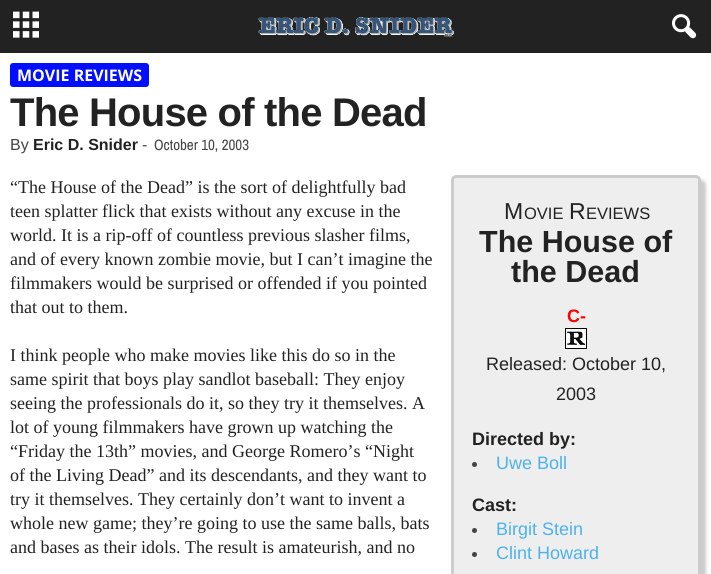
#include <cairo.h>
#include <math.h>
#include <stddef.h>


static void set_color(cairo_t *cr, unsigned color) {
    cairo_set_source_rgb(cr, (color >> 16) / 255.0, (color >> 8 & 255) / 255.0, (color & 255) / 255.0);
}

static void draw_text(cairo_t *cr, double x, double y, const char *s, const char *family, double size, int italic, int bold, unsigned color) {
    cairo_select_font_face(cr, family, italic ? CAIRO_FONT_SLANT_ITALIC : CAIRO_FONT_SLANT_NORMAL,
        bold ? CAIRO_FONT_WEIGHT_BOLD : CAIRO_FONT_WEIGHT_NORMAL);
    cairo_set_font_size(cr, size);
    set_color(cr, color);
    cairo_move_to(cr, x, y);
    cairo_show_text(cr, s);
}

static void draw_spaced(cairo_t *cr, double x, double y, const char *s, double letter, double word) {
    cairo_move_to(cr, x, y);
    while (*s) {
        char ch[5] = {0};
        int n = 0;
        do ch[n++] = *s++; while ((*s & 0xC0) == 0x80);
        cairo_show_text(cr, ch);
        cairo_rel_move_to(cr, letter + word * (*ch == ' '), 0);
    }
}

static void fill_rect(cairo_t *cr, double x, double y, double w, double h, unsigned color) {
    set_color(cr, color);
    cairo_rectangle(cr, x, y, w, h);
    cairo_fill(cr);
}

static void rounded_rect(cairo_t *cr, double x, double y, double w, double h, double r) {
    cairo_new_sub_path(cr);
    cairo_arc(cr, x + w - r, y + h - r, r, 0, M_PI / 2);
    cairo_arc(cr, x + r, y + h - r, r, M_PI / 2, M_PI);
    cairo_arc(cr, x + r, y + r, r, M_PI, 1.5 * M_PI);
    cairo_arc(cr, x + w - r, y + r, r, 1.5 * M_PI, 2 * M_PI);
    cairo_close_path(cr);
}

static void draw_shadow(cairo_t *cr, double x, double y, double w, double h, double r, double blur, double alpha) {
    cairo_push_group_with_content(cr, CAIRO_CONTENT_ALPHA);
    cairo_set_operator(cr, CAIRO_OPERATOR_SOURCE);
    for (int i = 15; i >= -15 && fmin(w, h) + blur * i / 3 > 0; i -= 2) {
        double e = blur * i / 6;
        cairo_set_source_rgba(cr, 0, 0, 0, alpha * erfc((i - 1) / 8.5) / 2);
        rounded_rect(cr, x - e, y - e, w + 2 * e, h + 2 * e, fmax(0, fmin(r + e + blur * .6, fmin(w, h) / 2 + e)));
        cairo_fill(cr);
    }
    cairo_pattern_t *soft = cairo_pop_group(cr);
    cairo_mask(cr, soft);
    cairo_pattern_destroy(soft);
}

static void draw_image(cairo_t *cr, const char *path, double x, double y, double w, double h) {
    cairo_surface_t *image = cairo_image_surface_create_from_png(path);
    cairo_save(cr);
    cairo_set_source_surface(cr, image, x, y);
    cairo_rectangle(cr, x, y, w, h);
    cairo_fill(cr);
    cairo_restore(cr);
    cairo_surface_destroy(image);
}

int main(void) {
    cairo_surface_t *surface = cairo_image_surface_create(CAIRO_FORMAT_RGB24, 711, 574);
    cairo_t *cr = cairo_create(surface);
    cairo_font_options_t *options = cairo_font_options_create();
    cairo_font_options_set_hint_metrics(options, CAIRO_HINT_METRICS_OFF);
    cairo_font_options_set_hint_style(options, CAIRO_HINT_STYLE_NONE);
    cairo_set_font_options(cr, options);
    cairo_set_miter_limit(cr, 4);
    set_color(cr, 0xFFFFFF);
    cairo_paint(cr);
    fill_rect(cr, 0, 0, 711, 53, 0x222222);
    draw_image(cr, "assets/img1.png", 13, 11, 26, 27);
    draw_image(cr, "assets/img2.png", 258, 17, 196, 20);
    draw_image(cr, "assets/img3.png", 672, 14, 25, 25);
    set_color(cr, 0x020FFF);
    rounded_rect(cr, 10, 63, 139, 24, 3);
    cairo_fill(cr);
    draw_text(cr, 17, 81, "MOVIE REVIEWS", "Open Sans", 16, 0, 1, 0xFFFFFF);
    cairo_select_font_face(cr, "Liberation Sans", CAIRO_FONT_SLANT_NORMAL, CAIRO_FONT_WEIGHT_BOLD);
    cairo_set_font_size(cr, 40);
    set_color(cr, 0x222222);
    draw_spaced(cr, 10, 126, "The House of the Dead", -0.8, 0);
    draw_text(cr, 10, 150, "By", "Liberation Sans", 16, 0, 0, 0x444444);
    draw_text(cr, 33, 150, "Eric D. Snider", "Liberation Sans", 16, 0, 1, 0x222222);
    draw_text(cr, 142, 150, "-", "Liberation Sans", 16, 0, 0, 0x444444);
    draw_text(cr, 154, 150, "October 10, 2003", "Archivo Narrow", 15, 0, 0, 0x444444);
    draw_text(cr, 10, 193, "“The House of the Dead” is the sort of delightfully bad", "Liberation Serif", 18, 0, 0, 0x222222);
    draw_text(cr, 10, 217, "teen splatter flick that exists without any excuse in the", "Liberation Serif", 18, 0, 0, 0x222222);
    draw_text(cr, 10, 241, "world. It is a rip-off of countless previous slasher films,", "Liberation Serif", 18, 0, 0, 0x222222);
    draw_text(cr, 10, 265, "and of every known zombie movie, but I can’t imagine the", "Liberation Serif", 18, 0, 0, 0x222222);
    draw_text(cr, 10, 289, "filmmakers would be surprised or offended if you pointed", "Liberation Serif", 18, 0, 0, 0x222222);
    draw_text(cr, 10, 313, "that out to them.", "Liberation Serif", 18, 0, 0, 0x222222);
    set_color(cr, 0xCCCCCC);
    draw_shadow(cr, 456, 180, 250, 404, 5, 1.5, 1);
    set_color(cr, 0xEEEEEE);
    rounded_rect(cr, 452.5, 176.5, 247, 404, 3.5);
    cairo_fill_preserve(cr);
    set_color(cr, 0xCCCCCC);
    cairo_set_line_width(cr, 3);
    cairo_stroke(cr);
    draw_text(cr, 504, 219, "M", "Liberation Sans", 23, 0, 0, 0x222222);
    draw_text(cr, 524, 219, "OVIE", "Liberation Sans", 16.5, 0, 0, 0x222222);
    draw_text(cr, 569, 219, "R", "Liberation Sans", 23, 0, 0, 0x222222);
    draw_text(cr, 586, 219, "EVIEWS", "Liberation Sans", 16.5, 0, 0, 0x222222);
    draw_text(cr, 479, 252, "The House of", "Liberation Sans", 30.5, 0, 1, 0x222222);
    draw_text(cr, 511, 282, "the Dead", "Liberation Sans", 30.5, 0, 1, 0x222222);
    draw_text(cr, 567, 322, "C-", "Liberation Sans", 18, 0, 1, 0xFF0000);
    draw_image(cr, "assets/img4.png", 565, 328, 22, 21);
    draw_text(cr, 486, 370, "Released: October 10,", "Liberation Sans", 18, 0, 0, 0x222222);
    draw_text(cr, 556, 400, "2003", "Liberation Sans", 18, 0, 0, 0x222222);
    draw_text(cr, 472, 445, "Directed by:", "Liberation Sans", 18, 0, 1, 0x222222);
    set_color(cr, 0x444444);
    cairo_new_path(cr);
    cairo_arc(cr, 474.5, 464.5, 2.5, 0, 2 * M_PI);
    cairo_fill(cr);
    draw_text(cr, 496, 469, "Uwe Boll", "Liberation Sans", 18, 0, 0, 0x4DB2EC);
    draw_text(cr, 472, 511, "Cast:", "Liberation Sans", 18, 0, 1, 0x222222);
    set_color(cr, 0x444444);
    cairo_new_path(cr);
    cairo_arc(cr, 474.5, 530.5, 2.5, 0, 2 * M_PI);
    cairo_fill(cr);
    draw_text(cr, 496, 535, "Birgit Stein", "Liberation Sans", 18, 0, 0, 0x4DB2EC);
    set_color(cr, 0x444444);
    cairo_new_path(cr);
    cairo_arc(cr, 474.5, 554.5, 2.5, 0, 2 * M_PI);
    cairo_fill(cr);
    draw_text(cr, 496, 559, "Clint Howard", "Liberation Sans", 18, 0, 0, 0x4DB2EC);
    draw_text(cr, 10, 361, "I think people who make movies like this do so in the", "Liberation Serif", 18, 0, 0, 0x222222);
    draw_text(cr, 10, 385, "same spirit that boys play sandlot baseball: They enjoy", "Liberation Serif", 18, 0, 0, 0x222222);
    draw_text(cr, 10, 409, "seeing the professionals do it, so they try it themselves. A", "Liberation Serif", 18, 0, 0, 0x222222);
    draw_text(cr, 10, 433, "lot of young filmmakers have grown up watching the", "Liberation Serif", 18, 0, 0, 0x222222);
    draw_text(cr, 10, 457, "“Friday the 13th” movies, and George Romero’s “Night", "Liberation Serif", 18, 0, 0, 0x222222);
    draw_text(cr, 10, 481, "of the Living Dead” and its descendants, and they want to", "Liberation Serif", 18, 0, 0, 0x222222);
    draw_text(cr, 10, 505, "try it themselves. They certainly don’t want to invent a", "Liberation Serif", 18, 0, 0, 0x222222);
    draw_text(cr, 10, 529, "whole new game; they’re going to use the same balls, bats", "Liberation Serif", 18, 0, 0, 0x222222);
    draw_text(cr, 10, 553, "and bases as their idols. The result is amateurish, and no", "Liberation Serif", 18, 0, 0, 0x222222);
    cairo_surface_write_to_png(surface, "output.png");
    cairo_font_options_destroy(options);
    cairo_destroy(cr);
    cairo_surface_destroy(surface);
    return 0;
}
